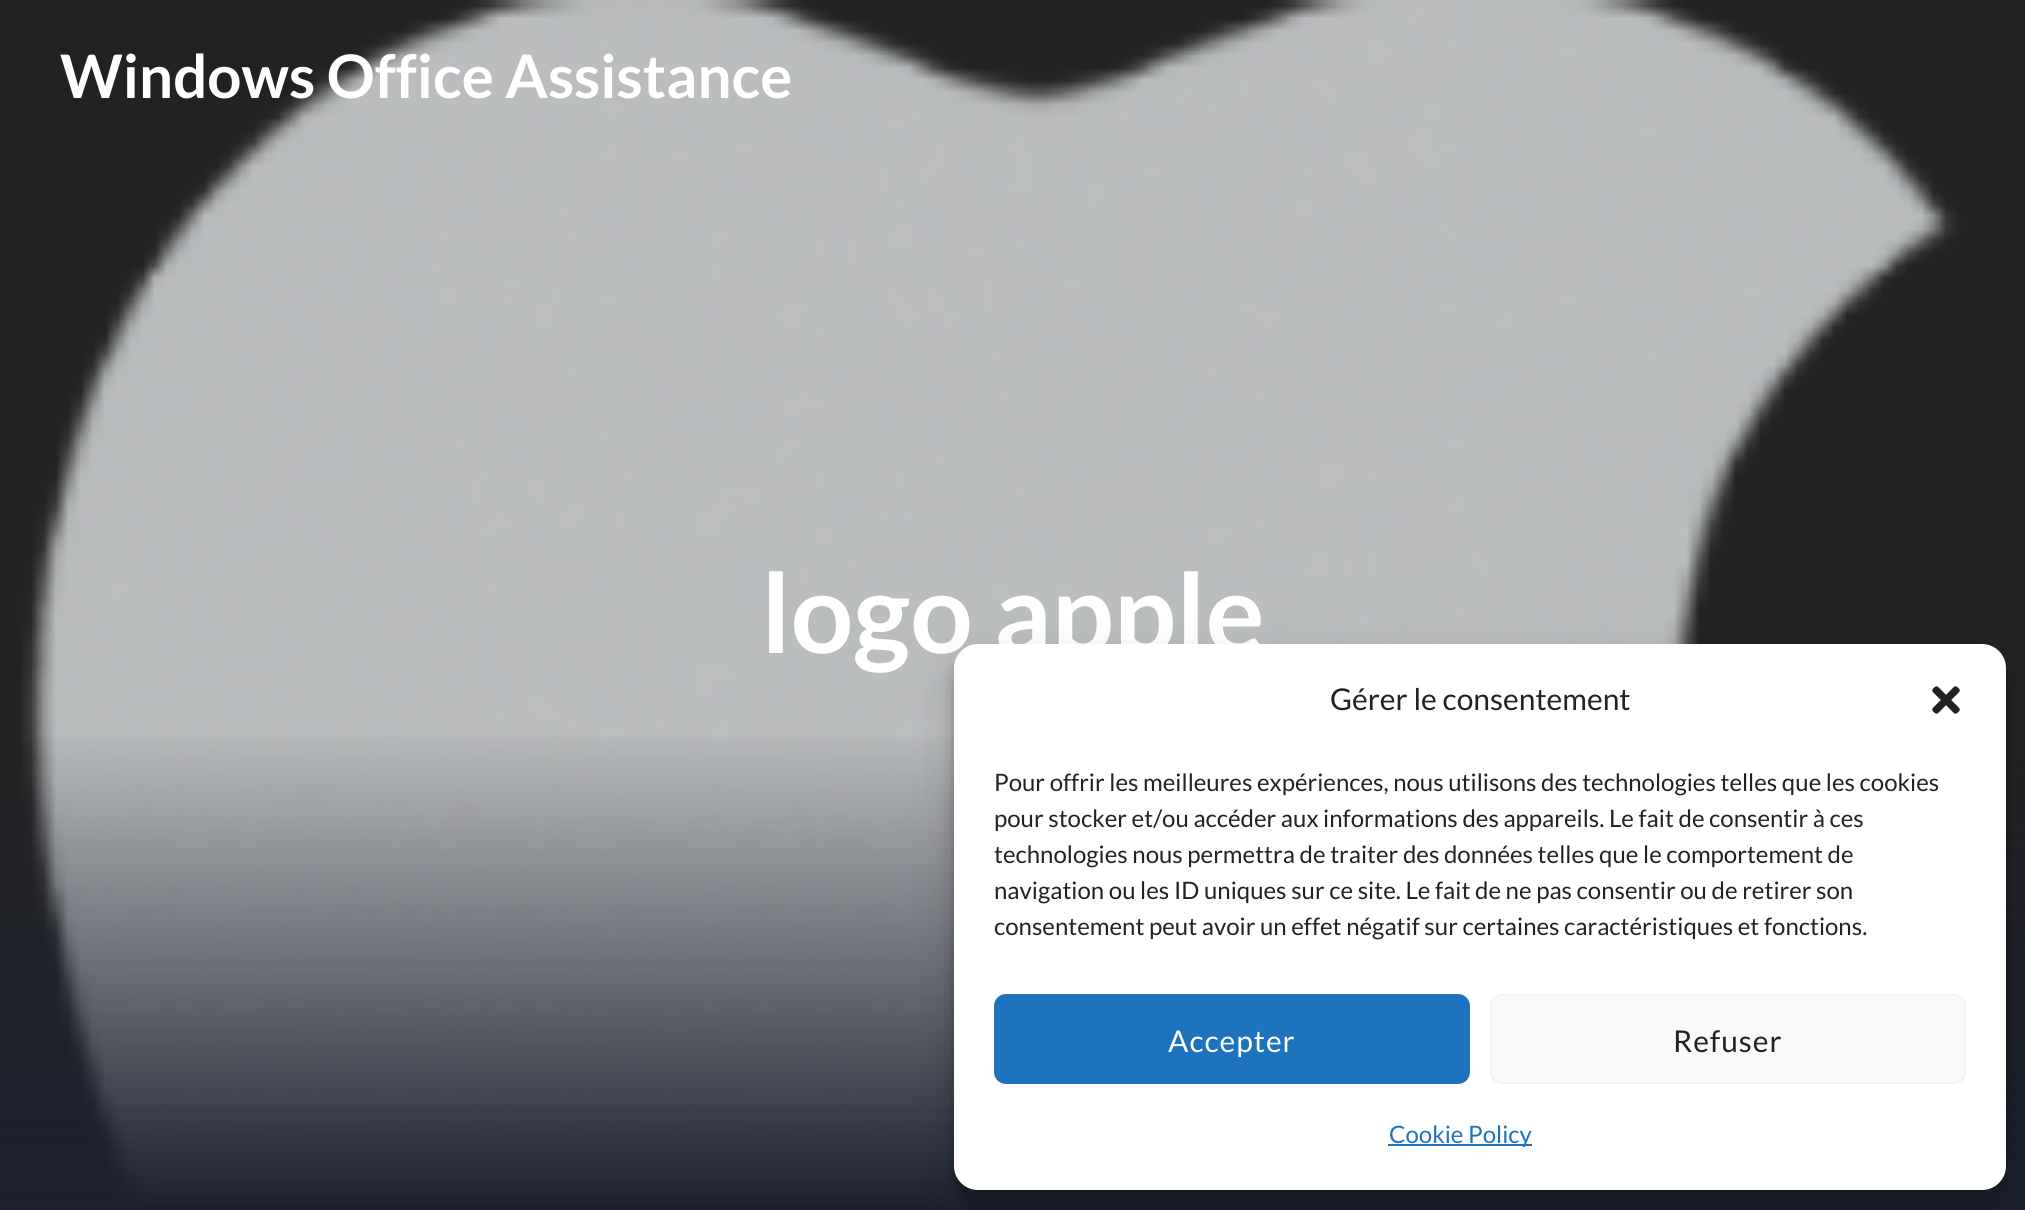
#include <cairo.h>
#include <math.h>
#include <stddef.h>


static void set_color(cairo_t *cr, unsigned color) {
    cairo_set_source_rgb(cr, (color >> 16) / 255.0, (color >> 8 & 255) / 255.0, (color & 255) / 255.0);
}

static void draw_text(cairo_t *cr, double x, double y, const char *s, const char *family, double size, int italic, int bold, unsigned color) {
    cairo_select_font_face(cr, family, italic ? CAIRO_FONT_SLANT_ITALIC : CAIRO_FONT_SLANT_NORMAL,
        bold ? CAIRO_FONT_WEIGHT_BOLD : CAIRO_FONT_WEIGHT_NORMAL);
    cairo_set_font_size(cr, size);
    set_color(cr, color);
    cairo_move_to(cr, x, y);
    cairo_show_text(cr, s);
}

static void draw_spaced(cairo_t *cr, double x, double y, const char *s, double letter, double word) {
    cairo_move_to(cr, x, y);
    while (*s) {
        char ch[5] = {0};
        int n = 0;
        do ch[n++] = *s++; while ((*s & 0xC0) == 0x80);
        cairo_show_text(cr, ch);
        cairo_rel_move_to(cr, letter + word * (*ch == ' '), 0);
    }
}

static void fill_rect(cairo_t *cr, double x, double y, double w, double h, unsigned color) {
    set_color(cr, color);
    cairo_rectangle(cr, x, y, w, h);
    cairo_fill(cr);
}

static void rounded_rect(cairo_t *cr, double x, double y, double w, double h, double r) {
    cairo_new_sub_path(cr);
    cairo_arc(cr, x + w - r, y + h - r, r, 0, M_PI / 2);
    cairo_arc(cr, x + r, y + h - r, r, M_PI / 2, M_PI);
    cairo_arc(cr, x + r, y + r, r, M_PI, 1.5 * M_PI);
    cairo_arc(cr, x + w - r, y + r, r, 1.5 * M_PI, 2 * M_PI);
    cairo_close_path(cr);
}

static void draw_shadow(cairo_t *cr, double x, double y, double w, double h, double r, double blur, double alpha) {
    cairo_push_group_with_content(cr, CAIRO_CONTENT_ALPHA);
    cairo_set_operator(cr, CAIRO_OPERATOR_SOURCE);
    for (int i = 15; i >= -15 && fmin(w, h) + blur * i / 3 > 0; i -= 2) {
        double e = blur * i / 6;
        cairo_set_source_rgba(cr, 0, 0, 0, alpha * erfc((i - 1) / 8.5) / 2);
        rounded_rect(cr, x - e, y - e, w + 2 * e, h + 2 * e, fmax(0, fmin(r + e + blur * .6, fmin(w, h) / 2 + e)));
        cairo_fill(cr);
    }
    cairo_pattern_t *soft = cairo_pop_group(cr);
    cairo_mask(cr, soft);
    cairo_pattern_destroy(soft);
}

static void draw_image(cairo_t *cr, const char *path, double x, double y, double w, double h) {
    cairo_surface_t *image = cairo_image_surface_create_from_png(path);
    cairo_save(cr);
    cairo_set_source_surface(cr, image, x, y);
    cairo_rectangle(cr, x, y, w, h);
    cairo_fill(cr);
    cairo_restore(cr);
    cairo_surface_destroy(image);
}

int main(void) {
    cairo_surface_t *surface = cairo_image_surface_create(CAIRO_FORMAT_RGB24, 2025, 1210);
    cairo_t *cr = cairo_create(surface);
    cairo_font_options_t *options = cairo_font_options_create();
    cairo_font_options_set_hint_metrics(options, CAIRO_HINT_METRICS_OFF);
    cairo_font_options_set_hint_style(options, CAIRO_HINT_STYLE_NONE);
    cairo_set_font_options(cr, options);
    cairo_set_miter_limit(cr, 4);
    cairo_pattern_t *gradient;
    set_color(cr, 0x222222);
    cairo_paint(cr);
    draw_image(cr, "assets/img1.png", 20, 0, 2000, 1207);
    draw_text(cr, 60, 98, "Windows Office Assistance", "Lato", 60, 0, 1, 0xFFFFFF);
    draw_text(cr, 761, 653, "logo apple", "Lato", 110, 0, 1, 0xFFFFFF);
    gradient = cairo_pattern_create_linear(1013, 726, 1013, 1210);
    cairo_pattern_add_color_stop_rgba(gradient, 0, 0.106, 0.125, 0.188, 0);
    cairo_pattern_add_color_stop_rgba(gradient, 1, 0.106, 0.125, 0.188, 1);
    cairo_set_source(cr, gradient);
    cairo_pattern_destroy(gradient);
    cairo_rectangle(cr, 0, 736, 2025, 474);
    cairo_fill(cr);
    set_color(cr, 0x000000);
    draw_shadow(cr, 954, 656, 1052, 546, 24, 6, 0.23);
    draw_shadow(cr, 954, 664, 1052, 546, 24, 20, 0.19);
    set_color(cr, 0xFFFFFF);
    rounded_rect(cr, 954, 644, 1052, 546, 24);
    cairo_fill(cr);
    draw_text(cr, 1330, 710, "Gérer le consentement", "Lato", 30, 0, 0, 0x222222);
    draw_image(cr, "assets/img2.png", 1932, 686, 28, 28);
    draw_text(cr, 994, 791, "Pour offrir les meilleures expériences, nous utilisons des technologies telles que les cookies", "Lato", 24, 0, 0, 0x222222);
    draw_text(cr, 994, 827, "pour stocker et/ou accéder aux informations des appareils. Le fait de consentir à ces", "Lato", 24, 0, 0, 0x222222);
    draw_text(cr, 994, 863, "technologies nous permettra de traiter des données telles que le comportement de", "Lato", 24, 0, 0, 0x222222);
    draw_text(cr, 994, 899, "navigation ou les ID uniques sur ce site. Le fait de ne pas consentir ou de retirer son", "Lato", 24, 0, 0, 0x222222);
    draw_text(cr, 994, 935, "consentement peut avoir un effet négatif sur certaines caractéristiques et fonctions.", "Lato", 24, 0, 0, 0x222222);
    set_color(cr, 0x1E73BE);
    rounded_rect(cr, 995, 995, 474, 88, 11);
    cairo_fill_preserve(cr);
    cairo_stroke(cr);
    cairo_set_font_size(cr, 30);
    set_color(cr, 0xFFFFFF);
    draw_spaced(cr, 1168, 1052, "Accepter", 1, 0);
    set_color(cr, 0xF9F9F9);
    rounded_rect(cr, 1491, 995, 474, 88, 11);
    cairo_fill_preserve(cr);
    set_color(cr, 0xF2F2F2);
    cairo_stroke(cr);
    set_color(cr, 0x222222);
    draw_spaced(cr, 1673, 1052, "Refuser", 1, 0);
    fill_rect(cr, 1388, 1144, 144, 2, 0x1E73BE);
    draw_text(cr, 1389, 1143, "Cookie Policy", "Lato", 24, 0, 0, 0x1E73BE);
    cairo_surface_write_to_png(surface, "output.png");
    cairo_font_options_destroy(options);
    cairo_destroy(cr);
    cairo_surface_destroy(surface);
    return 0;
}
